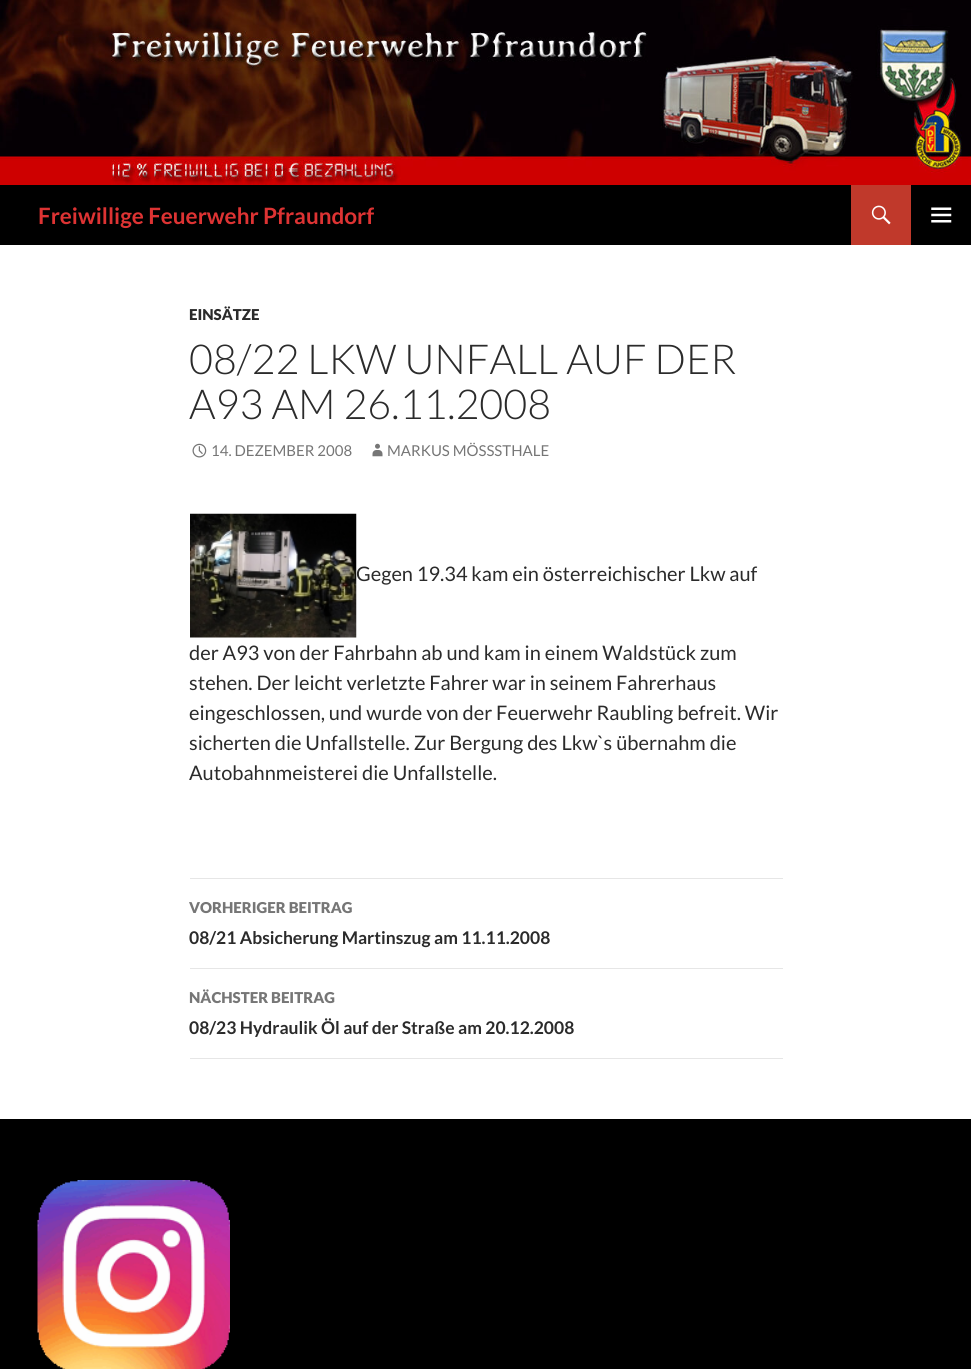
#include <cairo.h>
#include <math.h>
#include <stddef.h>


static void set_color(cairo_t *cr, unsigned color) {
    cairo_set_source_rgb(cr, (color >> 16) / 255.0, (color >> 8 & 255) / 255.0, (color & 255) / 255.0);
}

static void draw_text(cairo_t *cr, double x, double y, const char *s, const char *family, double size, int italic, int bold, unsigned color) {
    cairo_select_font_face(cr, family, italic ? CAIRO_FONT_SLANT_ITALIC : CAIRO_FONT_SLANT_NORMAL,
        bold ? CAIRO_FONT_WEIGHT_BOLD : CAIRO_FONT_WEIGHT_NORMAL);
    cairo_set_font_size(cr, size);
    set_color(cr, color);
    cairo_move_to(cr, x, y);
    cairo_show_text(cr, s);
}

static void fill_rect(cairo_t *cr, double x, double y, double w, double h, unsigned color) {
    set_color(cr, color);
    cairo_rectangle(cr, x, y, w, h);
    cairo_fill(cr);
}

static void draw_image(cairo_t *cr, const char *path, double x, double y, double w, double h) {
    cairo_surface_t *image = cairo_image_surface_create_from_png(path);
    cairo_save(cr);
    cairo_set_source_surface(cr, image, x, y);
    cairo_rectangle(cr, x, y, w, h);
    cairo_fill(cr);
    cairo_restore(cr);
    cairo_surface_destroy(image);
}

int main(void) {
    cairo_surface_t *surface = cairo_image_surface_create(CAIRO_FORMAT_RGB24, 971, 1369);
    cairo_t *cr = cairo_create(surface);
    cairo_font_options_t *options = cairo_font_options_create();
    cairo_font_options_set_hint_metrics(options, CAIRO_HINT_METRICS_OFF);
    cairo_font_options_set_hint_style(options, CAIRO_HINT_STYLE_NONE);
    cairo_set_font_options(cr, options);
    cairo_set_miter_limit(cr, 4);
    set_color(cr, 0xFFFFFF);
    cairo_paint(cr);
    draw_image(cr, "assets/img1.png", 0, 0, 971, 185);
    fill_rect(cr, 0, 185, 971, 60, 0x000000);
    draw_text(cr, 38, 224, "Freiwillige Feuerwehr Pfraundorf", "Lato", 22.5, 0, 1, 0xDD3333);
    fill_rect(cr, 851, 185, 60, 60, 0xC0392B);
    draw_image(cr, "assets/img2.png", 871, 205, 20, 20);
    draw_image(cr, "assets/img3.png", 931, 207, 21, 16);
    draw_text(cr, 189, 320, "EINSÄTZE", "Lato Black", 15, 0, 0, 0x2B2B2B);
    draw_text(cr, 189, 374, "08/22 LKW UNFALL AUF DER", "Lato Light", 41.25, 0, 0, 0x2B2B2B);
    draw_text(cr, 189, 419, "A93 AM 26.11.2008", "Lato Light", 41.25, 0, 0, 0x2B2B2B);
    draw_image(cr, "assets/img4.png", 192, 443, 15, 15);
    draw_text(cr, 211, 456, "14. DEZEMBER 2008", "Lato", 15, 0, 0, 0x767676);
    draw_image(cr, "assets/img5.png", 372, 443, 11, 14);
    draw_text(cr, 387, 456, "MARKUS MÖSSSTHALE", "Lato", 15, 0, 0, 0x767676);
    draw_image(cr, "assets/img6.png", 190, 513, 167, 125);
    draw_text(cr, 356, 581, "Gegen 19.34 kam ein österreichischer Lkw auf", "Lato", 20, 0, 0, 0x2B2B2B);
    draw_text(cr, 189, 660, "der A93 von der Fahrbahn ab und kam in einem Waldstück zum", "Lato", 20, 0, 0, 0x2B2B2B);
    draw_text(cr, 189, 690, "stehen. Der leicht verletzte Fahrer war in seinem Fahrerhaus", "Lato", 20, 0, 0, 0x2B2B2B);
    draw_text(cr, 189, 720, "eingeschlossen, und wurde von der Feuerwehr Raubling befreit. Wir", "Lato", 20, 0, 0, 0x2B2B2B);
    draw_text(cr, 189, 750, "sicherten die Unfallstelle. Zur Bergung des Lkw`s übernahm die", "Lato", 20, 0, 0, 0x2B2B2B);
    draw_text(cr, 189, 780, "Autobahnmeisterei die Unfallstelle.", "Lato", 20, 0, 0, 0x2B2B2B);
    fill_rect(cr, 190, 878, 593, 1, 0xE6E6E6);
    fill_rect(cr, 190, 968, 593, 1, 0xE6E6E6);
    draw_text(cr, 189, 913, "VORHERIGER BEITRAG", "Lato Black", 15, 0, 0, 0x767676);
    draw_text(cr, 189, 944, "08/21 Absicherung Martinszug am 11.11.2008", "Lato", 17.5, 0, 1, 0x2B2B2B);
    fill_rect(cr, 190, 1058, 593, 1, 0xE6E6E6);
    draw_text(cr, 189, 1003, "NÄCHSTER BEITRAG", "Lato Black", 15, 0, 0, 0x767676);
    draw_text(cr, 189, 1034, "08/23 Hydraulik Öl auf der Straße am 20.12.2008", "Lato", 17.5, 0, 1, 0x2B2B2B);
    fill_rect(cr, 0, 1119, 971, 250, 0x000000);
    draw_image(cr, "assets/img7.png", 37, 1180, 193, 189);
    cairo_surface_write_to_png(surface, "output.png");
    cairo_font_options_destroy(options);
    cairo_destroy(cr);
    cairo_surface_destroy(surface);
    return 0;
}
